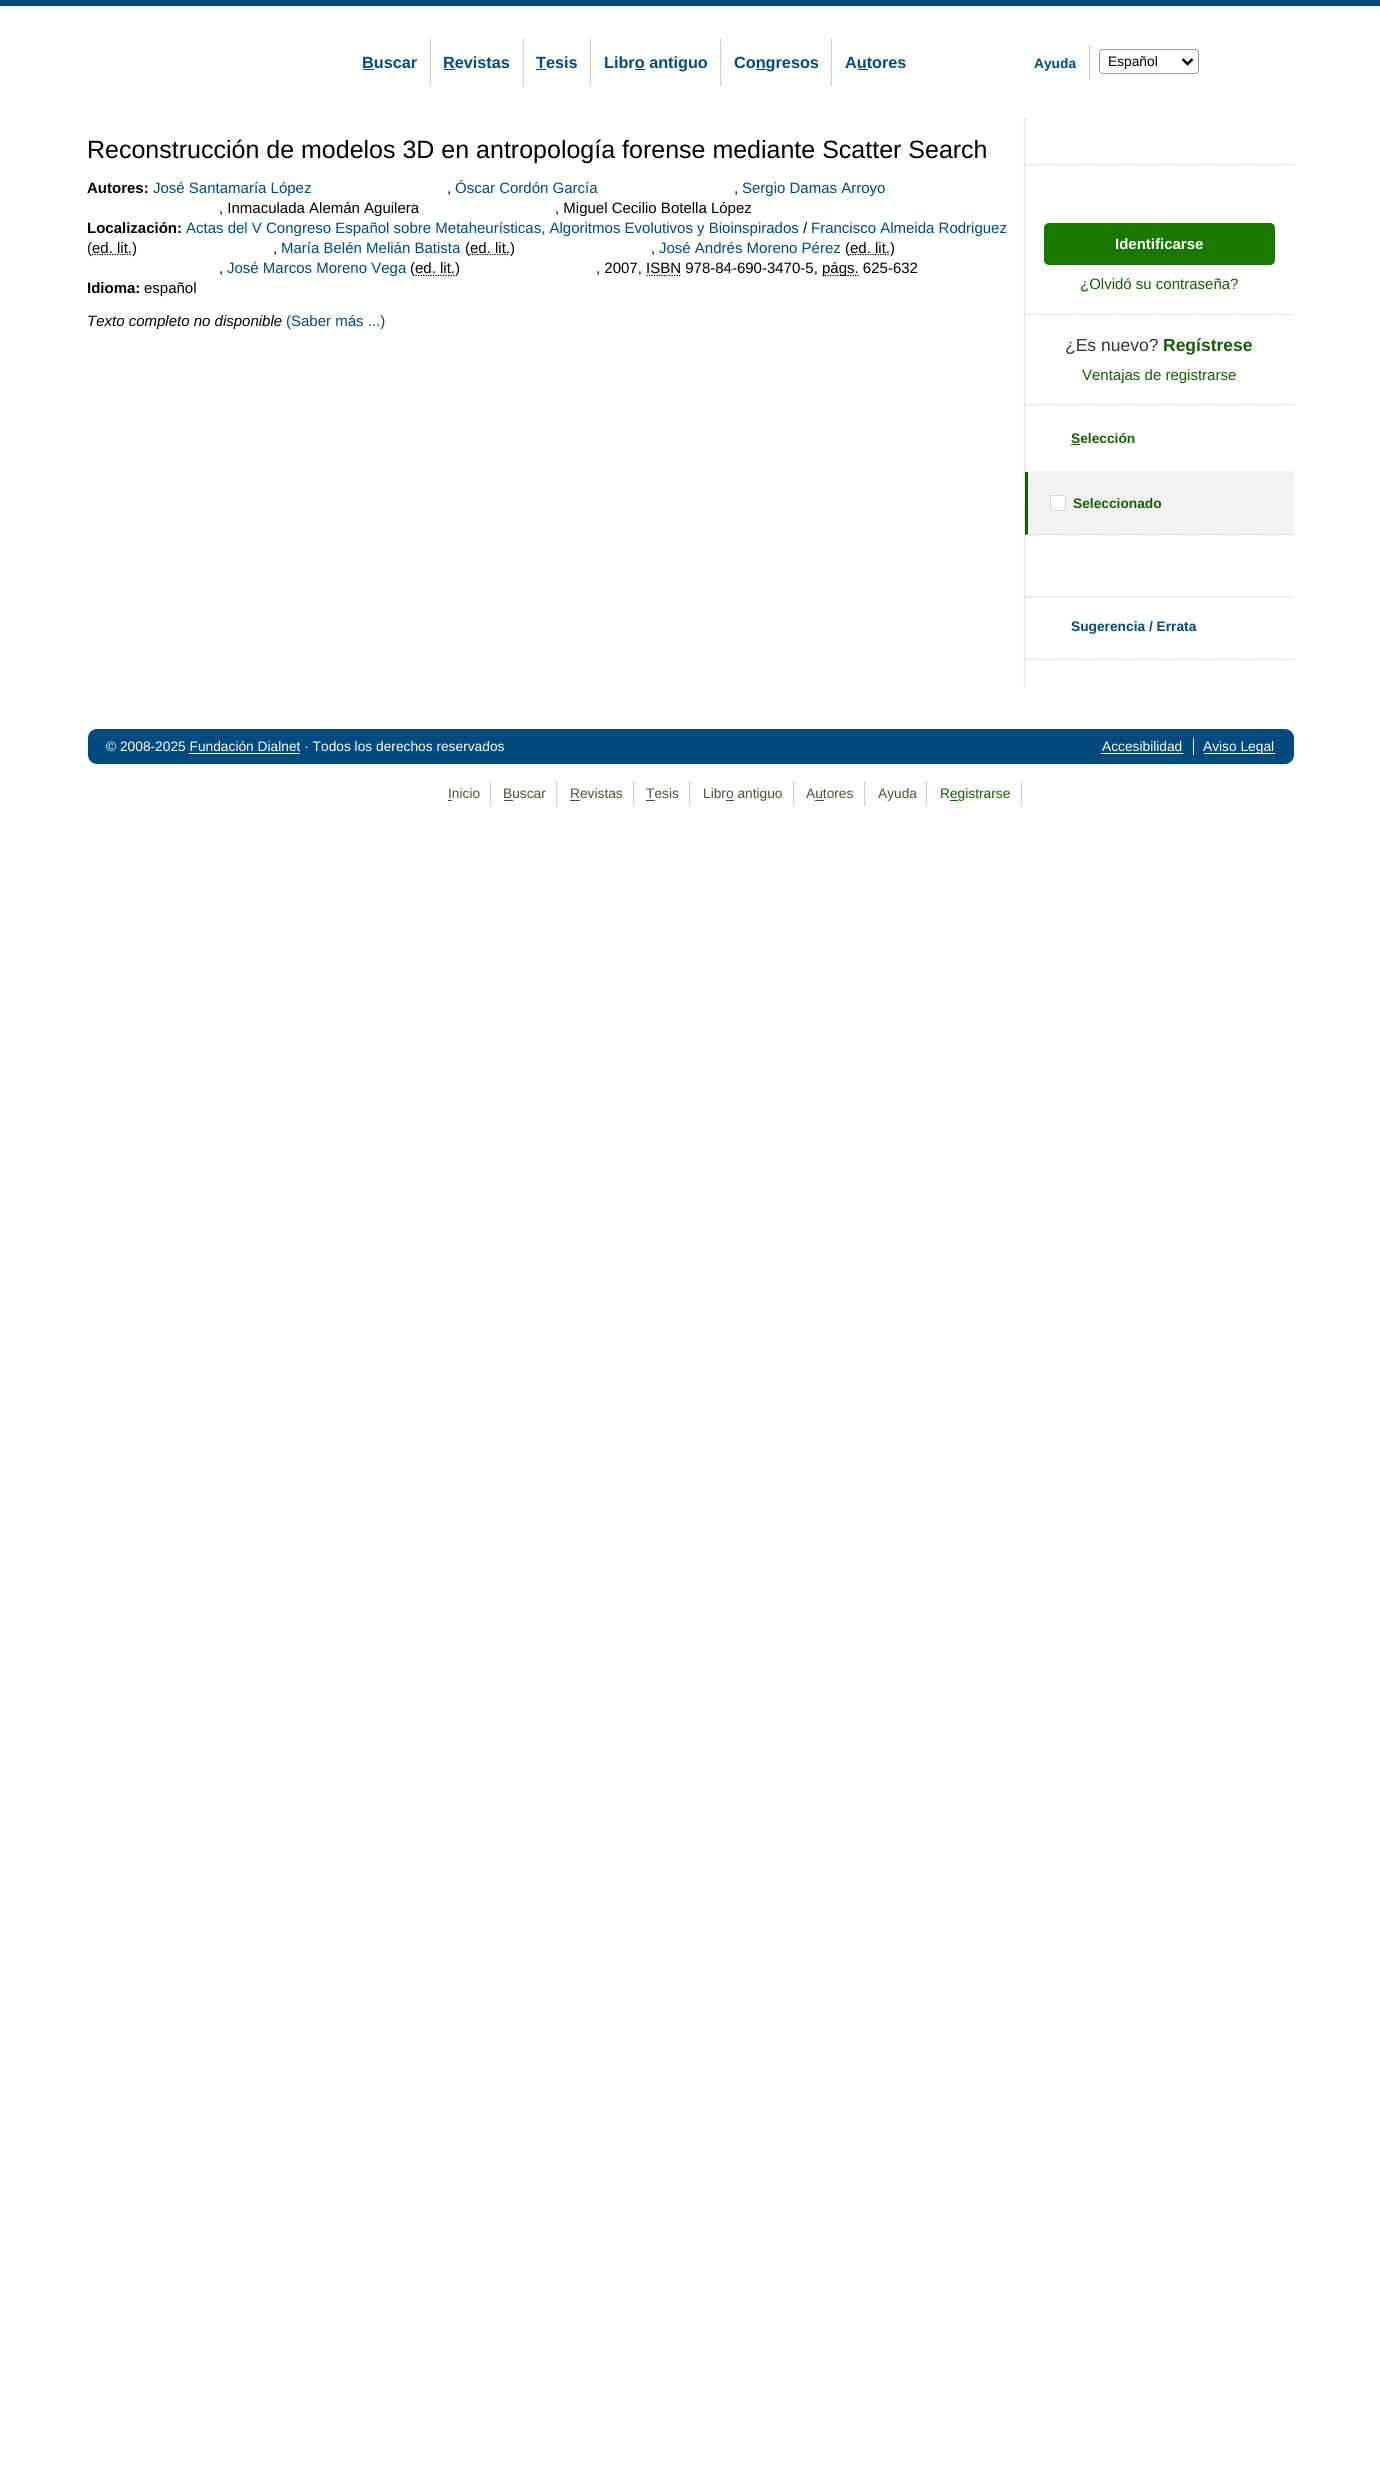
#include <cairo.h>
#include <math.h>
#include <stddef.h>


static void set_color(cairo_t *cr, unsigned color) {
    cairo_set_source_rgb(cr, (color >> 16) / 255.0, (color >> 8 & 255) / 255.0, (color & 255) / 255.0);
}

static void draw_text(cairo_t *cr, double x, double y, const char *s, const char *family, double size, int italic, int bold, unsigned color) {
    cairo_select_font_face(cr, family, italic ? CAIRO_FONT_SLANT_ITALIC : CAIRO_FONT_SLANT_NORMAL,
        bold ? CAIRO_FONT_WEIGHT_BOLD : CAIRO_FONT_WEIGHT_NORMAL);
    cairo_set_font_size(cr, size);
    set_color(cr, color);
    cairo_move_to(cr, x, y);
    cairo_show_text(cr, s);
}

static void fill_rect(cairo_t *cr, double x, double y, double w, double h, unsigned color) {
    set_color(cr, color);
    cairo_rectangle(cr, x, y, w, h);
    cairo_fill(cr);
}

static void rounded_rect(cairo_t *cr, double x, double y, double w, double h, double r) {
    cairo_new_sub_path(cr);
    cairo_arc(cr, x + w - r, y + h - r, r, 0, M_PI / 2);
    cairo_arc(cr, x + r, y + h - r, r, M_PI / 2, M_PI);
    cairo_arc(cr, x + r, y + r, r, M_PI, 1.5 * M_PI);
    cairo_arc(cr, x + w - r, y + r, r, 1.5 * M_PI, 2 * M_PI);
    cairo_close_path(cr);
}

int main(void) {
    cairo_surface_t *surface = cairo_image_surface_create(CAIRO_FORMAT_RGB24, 1380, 2488);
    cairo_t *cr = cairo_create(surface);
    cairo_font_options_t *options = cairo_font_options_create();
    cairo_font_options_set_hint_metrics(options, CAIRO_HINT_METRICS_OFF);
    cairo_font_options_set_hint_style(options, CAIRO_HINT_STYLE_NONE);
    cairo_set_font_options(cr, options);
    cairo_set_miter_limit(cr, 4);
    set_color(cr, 0xFFFFFF);
    cairo_paint(cr);
    fill_rect(cr, 0, 0, 1380, 6, 0x004A7F);
    fill_rect(cr, 430, 39, 1, 47, 0xCCCCCC);
    draw_text(cr, 362, 68, "Buscar", "Liberation Sans", 16.25, 0, 1, 0x004A7F);
    fill_rect(cr, 363, 69, 11, 1, 0x004A7F);
    fill_rect(cr, 523, 39, 1, 47, 0xCCCCCC);
    draw_text(cr, 443, 68, "Revistas", "Liberation Sans", 16.25, 0, 1, 0x004A7F);
    fill_rect(cr, 444, 69, 11, 1, 0x004A7F);
    fill_rect(cr, 590, 39, 1, 47, 0xCCCCCC);
    draw_text(cr, 536, 68, "Tesis", "Liberation Sans", 16.25, 0, 1, 0x004A7F);
    fill_rect(cr, 536, 69, 10, 1, 0x004A7F);
    fill_rect(cr, 720, 39, 1, 47, 0xCCCCCC);
    draw_text(cr, 604, 68, "Libro antiguo", "Liberation Sans", 16.25, 0, 1, 0x004A7F);
    fill_rect(cr, 635, 69, 10, 1, 0x004A7F);
    fill_rect(cr, 831, 39, 1, 47, 0xCCCCCC);
    draw_text(cr, 734, 68, "Congresos", "Liberation Sans", 16.25, 0, 1, 0x004A7F);
    fill_rect(cr, 756, 69, 10, 1, 0x004A7F);
    draw_text(cr, 845, 68, "Autores", "Liberation Sans", 16.25, 0, 1, 0x004A7F);
    fill_rect(cr, 858, 69, 10, 1, 0x004A7F);
    fill_rect(cr, 1089, 45, 1, 35, 0xCCCCCC);
    draw_text(cr, 1034, 68, "Ayuda", "Liberation Sans", 13.75, 0, 1, 0x004A7F);
    rounded_rect(cr, 1099.5, 49.5, 99, 24, 3.5);
    set_color(cr, 0x999999);
    cairo_set_line_width(cr, 1);
    cairo_stroke(cr);
    cairo_new_path(cr);
    cairo_move_to(cr, 1182.5, 59);
    cairo_line_to(cr, 1187.5, 64);
    cairo_line_to(cr, 1192.5, 59);
    set_color(cr, 0x000000);
    cairo_set_line_width(cr, 2.5);
    cairo_stroke(cr);
    draw_text(cr, 1108, 66, "Español", "Liberation Sans", 13.75, 0, 0, 0x000000);
    draw_text(cr, 87, 158, "Reconstrucción de modelos 3D en antropología forense mediante Scatter Search", "Liberation Sans", 25, 0, 0, 0x000000);
    draw_text(cr, 87, 193, "Autores:", "Liberation Sans", 15, 0, 1, 0x000000);
    draw_text(cr, 153, 193, "José Santamaría López", "Liberation Sans", 15, 0, 0, 0x004A7F);
    draw_text(cr, 447, 193, ",", "Liberation Sans", 15, 0, 0, 0x000000);
    draw_text(cr, 455, 193, "Óscar Cordón García", "Liberation Sans", 15, 0, 0, 0x004A7F);
    draw_text(cr, 734, 193, ",", "Liberation Sans", 15, 0, 0, 0x000000);
    draw_text(cr, 742, 193, "Sergio Damas Arroyo", "Liberation Sans", 15, 0, 0, 0x004A7F);
    draw_text(cr, 219, 213, ", Inmaculada Alemán Aguilera", "Liberation Sans", 15, 0, 0, 0x000000);
    draw_text(cr, 555, 213, ", Miguel Cecilio Botella López", "Liberation Sans", 15, 0, 0, 0x000000);
    draw_text(cr, 87, 233, "Localización:", "Liberation Sans", 15, 0, 1, 0x000000);
    draw_text(cr, 186, 233, "Actas del V Congreso Español sobre Metaheurísticas, Algoritmos Evolutivos y Bioinspirados", "Liberation Sans", 15, 0, 0, 0x004A7F);
    draw_text(cr, 803, 233, "/", "Liberation Sans", 15, 0, 0, 0x000000);
    draw_text(cr, 811, 233, "Francisco Almeida Rodriguez", "Liberation Sans", 15, 0, 0, 0x004A7F);
    draw_text(cr, 87, 253, "(", "Liberation Sans", 15, 0, 0, 0x000000);
    cairo_new_path(cr);
    cairo_move_to(cr, 92, 254.5);
    cairo_line_to(cr, 132, 254.5);
    cairo_set_line_width(cr, 1.2);
    cairo_set_dash(cr, (double[]){1.25, 1.25}, 2, 0);
    cairo_stroke(cr);
    draw_text(cr, 92, 253, "ed. lit.)", "Liberation Sans", 15, 0, 0, 0x000000);
    draw_text(cr, 273, 253, ",", "Liberation Sans", 15, 0, 0, 0x000000);
    draw_text(cr, 281, 253, "María Belén Melián Batista", "Liberation Sans", 15, 0, 0, 0x004A7F);
    draw_text(cr, 465, 253, "(", "Liberation Sans", 15, 0, 0, 0x000000);
    cairo_new_path(cr);
    cairo_move_to(cr, 469.5, 254.5);
    cairo_line_to(cr, 509.5, 254.5);
    cairo_stroke(cr);
    draw_text(cr, 470, 253, "ed. lit.)", "Liberation Sans", 15, 0, 0, 0x000000);
    draw_text(cr, 651, 253, ",", "Liberation Sans", 15, 0, 0, 0x000000);
    draw_text(cr, 659, 253, "José Andrés Moreno Pérez", "Liberation Sans", 15, 0, 0, 0x004A7F);
    draw_text(cr, 845, 253, "(", "Liberation Sans", 15, 0, 0, 0x000000);
    cairo_new_path(cr);
    cairo_move_to(cr, 850, 254.5);
    cairo_line_to(cr, 890, 254.5);
    cairo_stroke(cr);
    draw_text(cr, 850, 253, "ed. lit.)", "Liberation Sans", 15, 0, 0, 0x000000);
    draw_text(cr, 219, 273, ",", "Liberation Sans", 15, 0, 0, 0x000000);
    draw_text(cr, 227, 273, "José Marcos Moreno Vega", "Liberation Sans", 15, 0, 0, 0x004A7F);
    draw_text(cr, 410, 273, "(ed. lit.)", "Liberation Sans", 15, 0, 0, 0x000000);
    cairo_new_path(cr);
    cairo_move_to(cr, 415.5, 275.5);
    cairo_line_to(cr, 455.5, 275.5);
    cairo_stroke(cr);
    draw_text(cr, 596, 273, ", 2007, ISBN 978-84-690-3470-5,", "Liberation Sans", 15, 0, 0, 0x000000);
    cairo_new_path(cr);
    cairo_move_to(cr, 646.5, 275.5);
    cairo_line_to(cr, 681.5, 275.5);
    cairo_stroke(cr);
    cairo_new_path(cr);
    cairo_move_to(cr, 822.5, 275.5);
    cairo_line_to(cr, 859, 275.5);
    cairo_stroke(cr);
    draw_text(cr, 822, 273, "págs. 625-632", "Liberation Sans", 15, 0, 0, 0x000000);
    draw_text(cr, 87, 293, "Idioma:", "Liberation Sans", 15, 0, 1, 0x000000);
    draw_text(cr, 144, 293, "español", "Liberation Sans", 15, 0, 0, 0x000000);
    draw_text(cr, 87, 326, "Texto completo no disponible", "Liberation Sans", 15, 1, 0, 0x000000);
    draw_text(cr, 286, 326, "(Saber más ...)", "Liberation Sans", 15, 0, 0, 0x004A7F);
    cairo_new_path(cr);
    cairo_move_to(cr, 1024.5, 119);
    cairo_line_to(cr, 1024.5, 685);
    set_color(cr, 0xCCCCCC);
    cairo_stroke(cr);
    cairo_new_path(cr);
    cairo_move_to(cr, 1025, 164.5);
    cairo_line_to(cr, 1294, 164.5);
    cairo_stroke(cr);
    cairo_new_path(cr);
    cairo_move_to(cr, 1025, 314.5);
    cairo_line_to(cr, 1294, 314.5);
    cairo_stroke(cr);
    set_color(cr, 0x1A7700);
    rounded_rect(cr, 1044, 223, 231, 42, 5);
    cairo_fill(cr);
    draw_text(cr, 1115, 249, "Identificarse", "Liberation Sans", 15, 0, 1, 0xFFFFFF);
    draw_text(cr, 1080, 289, "¿Olvidó su contraseña?", "Liberation Sans", 15, 0, 0, 0x155D02);
    cairo_new_path(cr);
    cairo_move_to(cr, 1025, 404.5);
    cairo_line_to(cr, 1294, 404.5);
    set_color(cr, 0xCCCCCC);
    cairo_stroke(cr);
    draw_text(cr, 1065, 351, "¿Es nuevo?", "Liberation Sans", 17.5, 0, 0, 0x333333);
    draw_text(cr, 1163, 351, "Regístrese", "Liberation Sans", 17.5, 0, 1, 0x155D02);
    draw_text(cr, 1082, 380, "Ventajas de registrarse", "Liberation Sans", 15, 0, 0, 0x155D02);
    cairo_new_path(cr);
    cairo_move_to(cr, 1025, 472);
    cairo_line_to(cr, 1294, 472);
    set_color(cr, 0xCCCCCC);
    cairo_stroke(cr);
    draw_text(cr, 1071, 443, "Selección", "Liberation Sans", 13.75, 0, 1, 0x155D02);
    fill_rect(cr, 1071, 444, 9, 1, 0x155D02);
    fill_rect(cr, 1026, 473, 268, 62, 0xF3F3F3);
    cairo_new_path(cr);
    cairo_move_to(cr, 1025, 534.5);
    cairo_line_to(cr, 1294, 534.5);
    set_color(cr, 0xCCCCCC);
    cairo_stroke(cr);
    set_color(cr, 0x155D02);
    cairo_new_path(cr);
    cairo_move_to(cr, 1025, 535);
    cairo_line_to(cr, 1025, 472);
    cairo_line_to(cr, 1028, 472);
    cairo_line_to(cr, 1028, 534);
    cairo_close_path(cr);
    cairo_fill(cr);
    set_color(cr, 0xFFFFFF);
    rounded_rect(cr, 1050, 495, 16, 16, 2.5);
    cairo_fill(cr);
    rounded_rect(cr, 1050.5, 495.5, 15, 15, 2);
    cairo_set_source_rgba(cr, 0.463, 0.463, 0.463, 0.3);
    cairo_set_line_width(cr, 1);
    cairo_set_dash(cr, NULL, 0, 0);
    cairo_stroke(cr);
    draw_text(cr, 1073, 508, "Seleccionado", "Liberation Sans", 13.75, 0, 1, 0x155D02);
    cairo_new_path(cr);
    cairo_move_to(cr, 1025, 597);
    cairo_line_to(cr, 1294, 597);
    set_color(cr, 0xCCCCCC);
    cairo_set_line_width(cr, 1.2);
    cairo_set_dash(cr, (double[]){1.25, 1.25}, 2, 0);
    cairo_stroke(cr);
    cairo_new_path(cr);
    cairo_move_to(cr, 1025, 659.5);
    cairo_line_to(cr, 1294, 659.5);
    cairo_stroke(cr);
    draw_text(cr, 1071, 631, "Sugerencia / Errata", "Liberation Sans", 13.75, 0, 1, 0x004A7F);
    rounded_rect(cr, 88, 729, 1206, 35, 9);
    cairo_fill(cr);
    draw_text(cr, 106, 751, "© 2008-2025 Fundación Dialnet · Todos los derechos reservados", "Liberation Sans", 13.75, 0, 0, 0xFFFFFF);
    fill_rect(cr, 189, 753, 111, 1, 0xFFFFFF);
    fill_rect(cr, 1193, 738, 1, 17, 0xFFFFFF);
    draw_text(cr, 1102, 751, "Accesibilidad", "Liberation Sans", 13.75, 0, 0, 0xFFFFFF);
    fill_rect(cr, 1101, 753, 82, 1, 0xFFFFFF);
    fill_rect(cr, 1204, 753, 71, 1, 0xFFFFFF);
    draw_text(cr, 1203, 751, "Aviso Legal", "Liberation Sans", 13.75, 0, 0, 0xFFFFFF);
    fill_rect(cr, 490, 781, 1, 25, 0xCCCCCC);
    draw_text(cr, 448, 798, "Inicio", "Liberation Sans", 13.75, 0, 0, 0x504F41);
    fill_rect(cr, 448, 800, 4, 1, 0x504F41);
    fill_rect(cr, 556, 781, 1, 25, 0xCCCCCC);
    draw_text(cr, 503, 798, "Buscar", "Liberation Sans", 13.75, 0, 0, 0x504F41);
    fill_rect(cr, 504, 800, 9, 1, 0x504F41);
    fill_rect(cr, 633, 781, 1, 25, 0xCCCCCC);
    draw_text(cr, 570, 798, "Revistas", "Liberation Sans", 13.75, 0, 0, 0x504F41);
    fill_rect(cr, 570, 800, 10, 1, 0x504F41);
    fill_rect(cr, 689, 781, 1, 25, 0xCCCCCC);
    draw_text(cr, 646, 798, "Tesis", "Liberation Sans", 13.75, 0, 0, 0x504F41);
    fill_rect(cr, 646, 800, 9, 1, 0x504F41);
    fill_rect(cr, 793, 781, 1, 25, 0xCCCCCC);
    draw_text(cr, 703, 798, "Libro antiguo", "Liberation Sans", 13.75, 0, 0, 0x504F41);
    fill_rect(cr, 726, 800, 8, 1, 0x504F41);
    fill_rect(cr, 864, 781, 1, 25, 0xCCCCCC);
    draw_text(cr, 806, 798, "Autores", "Liberation Sans", 13.75, 0, 0, 0x504F41);
    fill_rect(cr, 815, 800, 9, 1, 0x504F41);
    fill_rect(cr, 926, 781, 1, 25, 0xCCCCCC);
    draw_text(cr, 878, 798, "Ayuda", "Liberation Sans", 13.75, 0, 0, 0x504F41);
    fill_rect(cr, 1021, 781, 1, 25, 0xCCCCCC);
    draw_text(cr, 940, 798, "Registrarse", "Liberation Sans", 13.75, 0, 0, 0x155D02);
    fill_rect(cr, 950, 800, 8, 1, 0x155D02);
    cairo_surface_write_to_png(surface, "output.png");
    cairo_font_options_destroy(options);
    cairo_destroy(cr);
    cairo_surface_destroy(surface);
    return 0;
}
